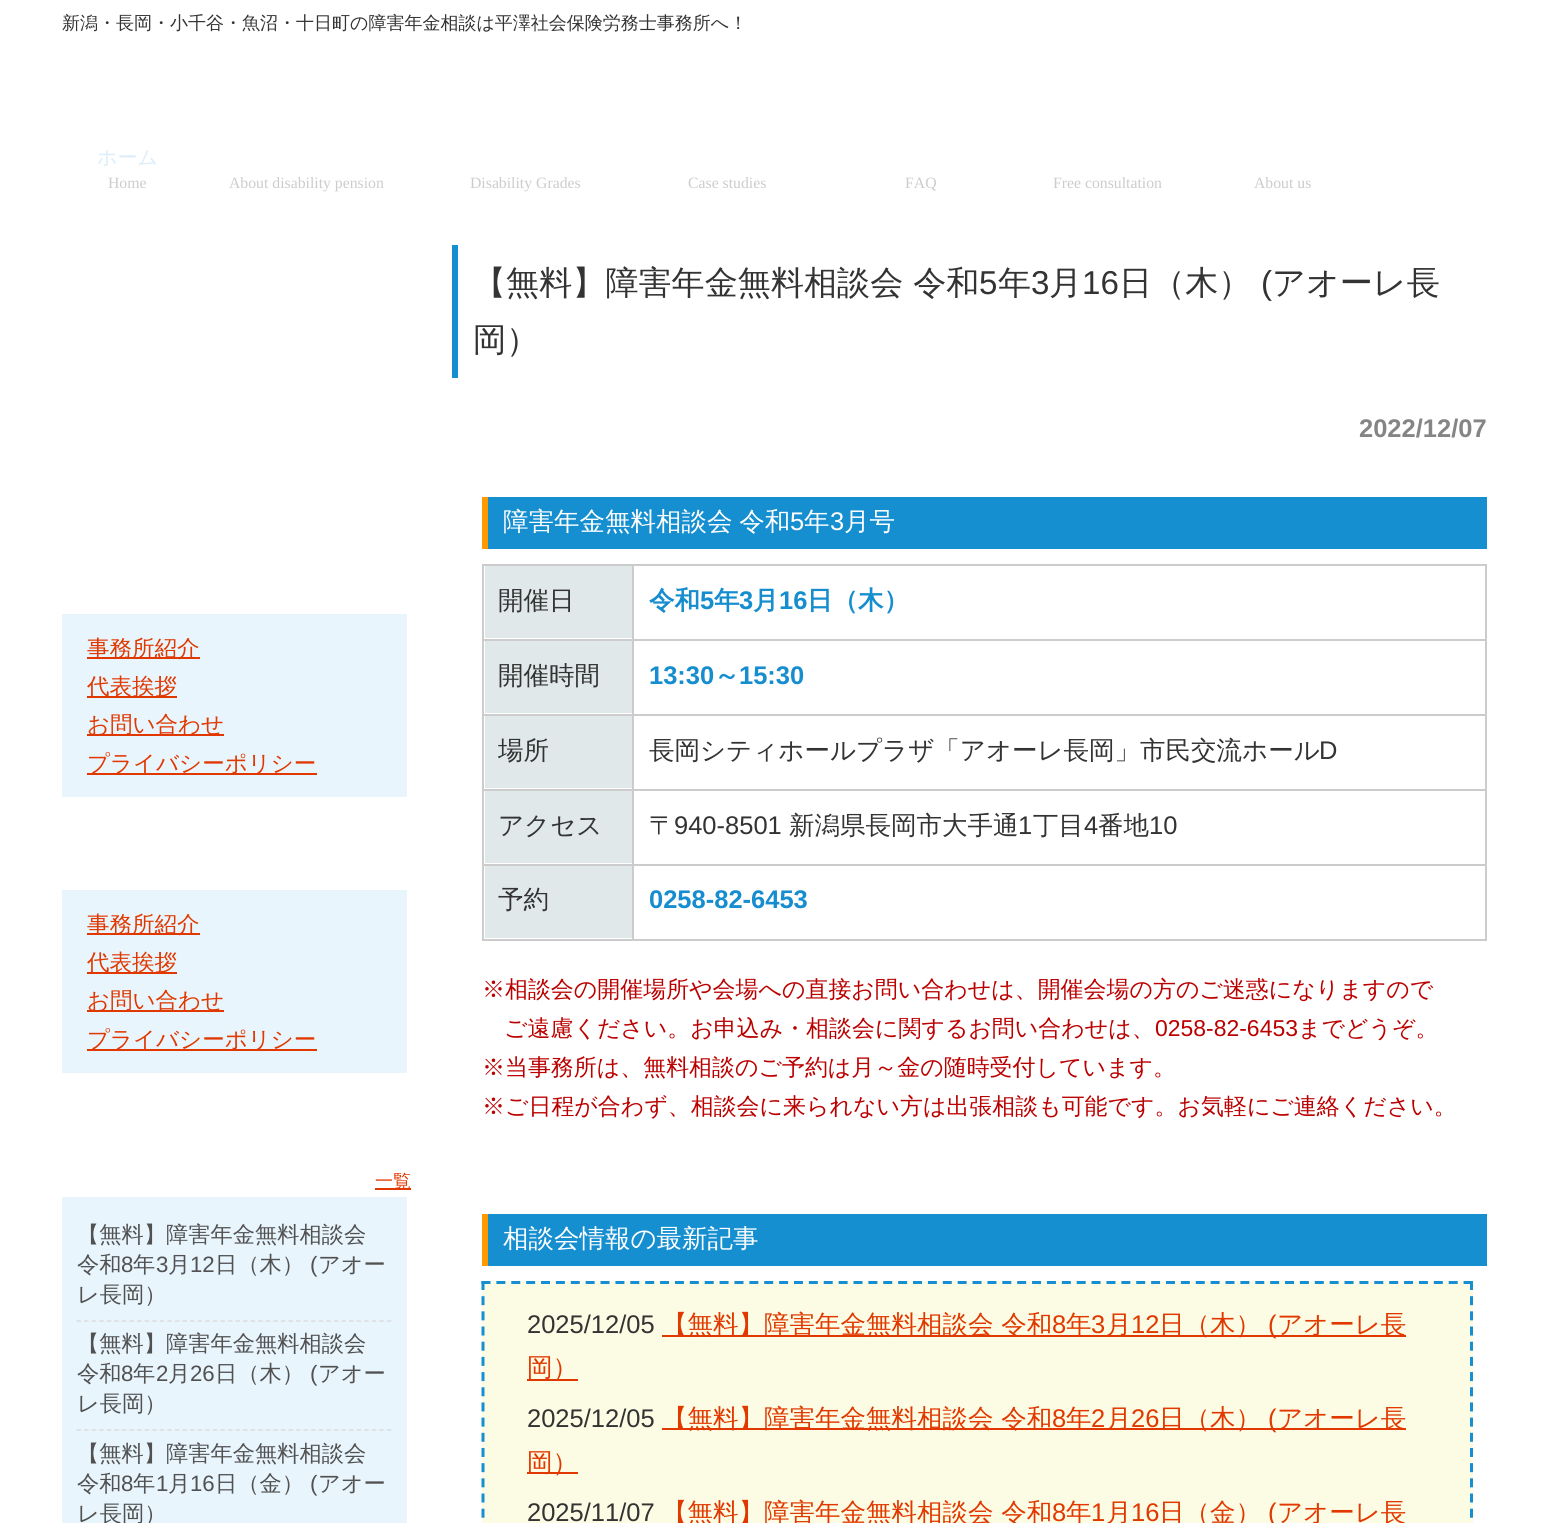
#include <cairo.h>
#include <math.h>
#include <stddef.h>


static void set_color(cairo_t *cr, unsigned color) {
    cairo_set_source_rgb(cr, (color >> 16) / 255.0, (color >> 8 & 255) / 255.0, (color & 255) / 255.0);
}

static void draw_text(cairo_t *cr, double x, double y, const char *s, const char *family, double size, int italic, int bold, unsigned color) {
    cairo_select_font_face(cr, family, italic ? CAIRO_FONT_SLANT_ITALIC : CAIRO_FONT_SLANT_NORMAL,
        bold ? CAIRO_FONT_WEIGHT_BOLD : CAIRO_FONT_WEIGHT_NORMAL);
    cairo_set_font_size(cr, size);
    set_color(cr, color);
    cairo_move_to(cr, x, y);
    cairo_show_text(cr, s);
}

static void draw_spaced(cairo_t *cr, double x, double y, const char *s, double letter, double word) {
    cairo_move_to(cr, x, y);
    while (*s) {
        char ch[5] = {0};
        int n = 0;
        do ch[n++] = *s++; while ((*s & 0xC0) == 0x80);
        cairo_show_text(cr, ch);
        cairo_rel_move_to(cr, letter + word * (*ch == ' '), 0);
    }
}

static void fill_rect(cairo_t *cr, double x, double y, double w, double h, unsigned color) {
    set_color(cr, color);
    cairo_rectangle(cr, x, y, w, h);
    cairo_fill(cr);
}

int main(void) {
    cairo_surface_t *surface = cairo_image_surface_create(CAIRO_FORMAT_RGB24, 1563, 1523);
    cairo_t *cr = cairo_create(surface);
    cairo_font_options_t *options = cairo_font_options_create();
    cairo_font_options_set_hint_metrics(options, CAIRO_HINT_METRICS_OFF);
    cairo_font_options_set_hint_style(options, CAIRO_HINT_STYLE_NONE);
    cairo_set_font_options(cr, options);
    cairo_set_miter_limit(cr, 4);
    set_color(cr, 0xFFFFFF);
    cairo_paint(cr);
    draw_text(cr, 62, 29, "新潟・長岡・小千谷・魚沼・十日町の障害年金相談は平澤社会保険労務士事務所へ！", "WenQuanYi Zen Hei Medium", 18, 0, 0, 0x333333);
    draw_text(cr, 97, 164, "ホーム", "WenQuanYi Zen Hei Medium", 20, 0, 0, 0xDAEDF8);
    draw_text(cr, 108, 188, "Home", "Liberation Serif", 15.75, 0, 0, 0xCCCCCC);
    draw_text(cr, 229, 188, "About disability pension", "Liberation Serif", 15.75, 0, 0, 0xCCCCCC);
    draw_text(cr, 470, 188, "Disability Grades", "Liberation Serif", 15.75, 0, 0, 0xCCCCCC);
    draw_text(cr, 688, 188, "Case studies", "Liberation Serif", 15.75, 0, 0, 0xCCCCCC);
    draw_text(cr, 905, 188, "FAQ", "Liberation Serif", 15.75, 0, 0, 0xCCCCCC);
    draw_text(cr, 1053, 188, "Free consultation", "Liberation Serif", 15.75, 0, 0, 0xCCCCCC);
    draw_text(cr, 1254, 188, "About us", "Liberation Serif", 15.75, 0, 0, 0xCCCCCC);
    fill_rect(cr, 62, 614, 345, 183, 0xE8F5FD);
    fill_rect(cr, 87, 657, 113, 2, 0xE13800);
    draw_text(cr, 87, 656, "事務所紹介", "WenQuanYi Zen Hei Medium", 22.5, 0, 0, 0xE13800);
    fill_rect(cr, 87, 696, 90, 2, 0xE13800);
    draw_text(cr, 87, 694, "代表挨拶", "WenQuanYi Zen Hei Medium", 22.5, 0, 0, 0xE13800);
    fill_rect(cr, 87, 734, 137, 2, 0xE13800);
    draw_text(cr, 87, 732, "お問い合わせ", "WenQuanYi Zen Hei Medium", 22.5, 0, 0, 0xE13800);
    fill_rect(cr, 87, 773, 230, 2, 0xE13800);
    draw_text(cr, 87, 771, "プライバシーポリシー", "WenQuanYi Zen Hei Medium", 22.5, 0, 0, 0xE13800);
    fill_rect(cr, 62, 890, 345, 183, 0xE8F5FD);
    fill_rect(cr, 87, 933, 113, 2, 0xE13800);
    draw_text(cr, 87, 932, "事務所紹介", "WenQuanYi Zen Hei Medium", 22.5, 0, 0, 0xE13800);
    fill_rect(cr, 87, 972, 90, 2, 0xE13800);
    draw_text(cr, 87, 970, "代表挨拶", "WenQuanYi Zen Hei Medium", 22.5, 0, 0, 0xE13800);
    fill_rect(cr, 87, 1010, 137, 2, 0xE13800);
    draw_text(cr, 87, 1008, "お問い合わせ", "WenQuanYi Zen Hei Medium", 22.5, 0, 0, 0xE13800);
    fill_rect(cr, 87, 1049, 230, 2, 0xE13800);
    draw_text(cr, 87, 1047, "プライバシーポリシー", "WenQuanYi Zen Hei Medium", 22.5, 0, 0, 0xE13800);
    fill_rect(cr, 375, 1188, 36, 2, 0xE13800);
    draw_text(cr, 375, 1187, "一覧", "WenQuanYi Zen Hei Medium", 18, 0, 0, 0xE13800);
    fill_rect(cr, 62, 1197, 345, 326, 0xE8F5FD);
    cairo_new_path(cr);
    cairo_move_to(cr, 76.5, 1321);
    cairo_line_to(cr, 391.5, 1321);
    set_color(cr, 0xDCDCDC);
    cairo_set_line_width(cr, 1.5);
    cairo_set_dash(cr, (double[]){4.5, 3.07}, 2, 0);
    cairo_stroke(cr);
    draw_text(cr, 77, 1242, "【無料】障害年金無料相談会", "WenQuanYi Zen Hei Medium", 22.25, 0, 0, 0x515151);
    draw_text(cr, 77, 1272, "令和", "WenQuanYi Zen Hei Medium", 22.25, 0, 0, 0x515151);
    draw_text(cr, 121, 1272, "8", "Liberation Sans", 22.25, 0, 0, 0x515151);
    draw_text(cr, 133, 1272, "年", "WenQuanYi Zen Hei Medium", 22.25, 0, 0, 0x515151);
    draw_text(cr, 156, 1272, "3", "Liberation Sans", 22.25, 0, 0, 0x515151);
    draw_text(cr, 168, 1272, "月", "WenQuanYi Zen Hei Medium", 22.25, 0, 0, 0x515151);
    draw_text(cr, 190, 1272, "12", "Liberation Sans", 22.25, 0, 0, 0x515151);
    draw_text(cr, 215, 1272, "日（木）", "WenQuanYi Zen Hei Medium", 22.25, 0, 0, 0x515151);
    draw_text(cr, 310, 1272, "(", "Liberation Sans", 22.25, 0, 0, 0x515151);
    draw_text(cr, 318, 1272, "アオー", "WenQuanYi Zen Hei Medium", 22.25, 0, 0, 0x515151);
    draw_text(cr, 77, 1302, "レ長岡）", "WenQuanYi Zen Hei Medium", 22.25, 0, 0, 0x515151);
    cairo_new_path(cr);
    cairo_move_to(cr, 76.5, 1430);
    cairo_line_to(cr, 391.5, 1430);
    set_color(cr, 0xDCDCDC);
    cairo_stroke(cr);
    draw_text(cr, 77, 1351, "【無料】障害年金無料相談会", "WenQuanYi Zen Hei Medium", 22.25, 0, 0, 0x515151);
    draw_text(cr, 77, 1381, "令和", "WenQuanYi Zen Hei Medium", 22.25, 0, 0, 0x515151);
    draw_text(cr, 121, 1381, "8", "Liberation Sans", 22.25, 0, 0, 0x515151);
    draw_text(cr, 133, 1381, "年", "WenQuanYi Zen Hei Medium", 22.25, 0, 0, 0x515151);
    draw_text(cr, 156, 1381, "2", "Liberation Sans", 22.25, 0, 0, 0x515151);
    draw_text(cr, 168, 1381, "月", "WenQuanYi Zen Hei Medium", 22.25, 0, 0, 0x515151);
    draw_text(cr, 190, 1381, "26", "Liberation Sans", 22.25, 0, 0, 0x515151);
    draw_text(cr, 215, 1381, "日（木）", "WenQuanYi Zen Hei Medium", 22.25, 0, 0, 0x515151);
    draw_text(cr, 310, 1381, "(", "Liberation Sans", 22.25, 0, 0, 0x515151);
    draw_text(cr, 318, 1381, "アオー", "WenQuanYi Zen Hei Medium", 22.25, 0, 0, 0x515151);
    draw_text(cr, 77, 1411, "レ長岡）", "WenQuanYi Zen Hei Medium", 22.25, 0, 0, 0x515151);
    draw_text(cr, 77, 1461, "【無料】障害年金無料相談会", "WenQuanYi Zen Hei Medium", 22.25, 0, 0, 0x515151);
    draw_text(cr, 77, 1491, "令和", "WenQuanYi Zen Hei Medium", 22.25, 0, 0, 0x515151);
    draw_text(cr, 121, 1491, "8", "Liberation Sans", 22.25, 0, 0, 0x515151);
    draw_text(cr, 133, 1491, "年", "WenQuanYi Zen Hei Medium", 22.25, 0, 0, 0x515151);
    draw_text(cr, 156, 1491, "1", "Liberation Sans", 22.25, 0, 0, 0x515151);
    draw_text(cr, 168, 1491, "月", "WenQuanYi Zen Hei Medium", 22.25, 0, 0, 0x515151);
    draw_text(cr, 190, 1491, "16", "Liberation Sans", 22.25, 0, 0, 0x515151);
    draw_text(cr, 215, 1491, "日（金）", "WenQuanYi Zen Hei Medium", 22.25, 0, 0, 0x515151);
    draw_text(cr, 310, 1491, "(", "Liberation Sans", 22.25, 0, 0, 0x515151);
    draw_text(cr, 318, 1491, "アオー", "WenQuanYi Zen Hei Medium", 22.25, 0, 0, 0x515151);
    draw_text(cr, 77, 1521, "レ長岡）", "WenQuanYi Zen Hei Medium", 22.25, 0, 0, 0x515151);
    fill_rect(cr, 452, 245, 6, 133, 0x168FD1);
    draw_text(cr, 473, 294, "【無料】障害年金無料相談会 令和", "WenQuanYi Zen Hei Medium", 33.1, 0, 0, 0x333333);
    draw_text(cr, 979, 294, "5", "Liberation Sans", 33.1, 0, 0, 0x333333);
    draw_text(cr, 998, 294, "年", "WenQuanYi Zen Hei Medium", 33.1, 0, 0, 0x333333);
    draw_text(cr, 1031, 294, "3", "Liberation Sans", 33.1, 0, 0, 0x333333);
    draw_text(cr, 1049, 294, "月", "WenQuanYi Zen Hei Medium", 33.1, 0, 0, 0x333333);
    draw_text(cr, 1082, 294, "16", "Liberation Sans", 33.1, 0, 0, 0x333333);
    draw_text(cr, 1119, 294, "日（木）", "WenQuanYi Zen Hei Medium", 33.1, 0, 0, 0x333333);
    draw_text(cr, 1261, 294, "(", "Liberation Sans", 33.1, 0, 0, 0x333333);
    draw_text(cr, 1272, 294, "アオーレ長", "WenQuanYi Zen Hei Medium", 33.1, 0, 0, 0x333333);
    draw_text(cr, 473, 351, "岡）", "WenQuanYi Zen Hei Medium", 33.1, 0, 0, 0x333333);
    draw_text(cr, 1359, 437, "2022/12/07", "Liberation Sans", 25.5, 0, 1, 0x858585);
    fill_rect(cr, 488, 497, 999, 52, 0x168FD1);
    fill_rect(cr, 482, 497, 6, 52, 0xFF9900);
    cairo_select_font_face(cr, "WenQuanYi Zen Hei Medium", CAIRO_FONT_SLANT_NORMAL, CAIRO_FONT_WEIGHT_NORMAL);
    set_color(cr, 0xFFFFFF);
    draw_spaced(cr, 503, 530, "障害年金無料相談会 令和", 0, -1);
    draw_text(cr, 790, 530, "5", "Liberation Sans", 25.5, 0, 0, 0xFFFFFF);
    draw_text(cr, 804, 530, "年", "WenQuanYi Zen Hei Medium", 25.5, 0, 0, 0xFFFFFF);
    draw_text(cr, 830, 530, "3", "Liberation Sans", 25.5, 0, 0, 0xFFFFFF);
    draw_text(cr, 844, 530, "月号", "WenQuanYi Zen Hei Medium", 25.5, 0, 0, 0xFFFFFF);
    fill_rect(cr, 482, 564, 1005, 2, 0xCCCCCC);
    fill_rect(cr, 1485, 564, 2, 377, 0xCCCCCC);
    fill_rect(cr, 482, 939, 1005, 2, 0xCCCCCC);
    fill_rect(cr, 482, 564, 2, 377, 0xCCCCCC);
    fill_rect(cr, 485, 566, 147, 72, 0xE0E8E9);
    fill_rect(cr, 632, 864, 2, 77, 0xCCCCCC);
    fill_rect(cr, 632, 864, 855, 2, 0xCCCCCC);
    fill_rect(cr, 632, 789, 2, 77, 0xCCCCCC);
    fill_rect(cr, 632, 789, 855, 2, 0xCCCCCC);
    fill_rect(cr, 632, 714, 2, 77, 0xCCCCCC);
    fill_rect(cr, 632, 714, 855, 2, 0xCCCCCC);
    fill_rect(cr, 632, 639, 2, 77, 0xCCCCCC);
    fill_rect(cr, 632, 639, 855, 2, 0xCCCCCC);
    fill_rect(cr, 632, 564, 2, 77, 0xCCCCCC);
    fill_rect(cr, 482, 639, 151, 2, 0xCCCCCC);
    draw_text(cr, 498, 609, "開催日", "WenQuanYi Zen Hei Medium", 25.5, 0, 0, 0x333333);
    draw_text(cr, 649, 609, "令和", "WenQuanYi Zen Hei", 25.5, 0, 1, 0x168DCE);
    draw_text(cr, 700, 609, "5", "Liberation Sans", 25.5, 0, 1, 0x168DCE);
    draw_text(cr, 714, 609, "年", "WenQuanYi Zen Hei", 25.5, 0, 1, 0x168DCE);
    draw_text(cr, 739, 609, "3", "Liberation Sans", 25.5, 0, 1, 0x168DCE);
    draw_text(cr, 753, 609, "月", "WenQuanYi Zen Hei", 25.5, 0, 1, 0x168DCE);
    draw_text(cr, 779, 609, "16", "Liberation Sans", 25.5, 0, 1, 0x168DCE);
    draw_text(cr, 807, 609, "日（木）", "WenQuanYi Zen Hei", 25.5, 0, 1, 0x168DCE);
    fill_rect(cr, 485, 641, 147, 72, 0xE0E8E9);
    fill_rect(cr, 482, 714, 151, 2, 0xCCCCCC);
    draw_text(cr, 498, 684, "開催時間", "WenQuanYi Zen Hei Medium", 25.5, 0, 0, 0x333333);
    draw_text(cr, 649, 684, "13:30", "Liberation Sans", 25.5, 0, 1, 0x168DCE);
    draw_text(cr, 714, 684, "～", "WenQuanYi Zen Hei", 25.5, 0, 1, 0x168DCE);
    draw_text(cr, 739, 684, "15:30", "Liberation Sans", 25.5, 0, 1, 0x168DCE);
    fill_rect(cr, 485, 716, 147, 72, 0xE0E8E9);
    fill_rect(cr, 482, 789, 151, 2, 0xCCCCCC);
    draw_text(cr, 498, 759, "場所", "WenQuanYi Zen Hei Medium", 25.5, 0, 0, 0x333333);
    draw_text(cr, 649, 759, "長岡シティホールプラザ「アオーレ長岡」市民交流ホール", "WenQuanYi Zen Hei Medium", 25.5, 0, 0, 0x333333);
    draw_text(cr, 1319, 759, "D", "Liberation Sans", 25.5, 0, 0, 0x333333);
    fill_rect(cr, 485, 791, 147, 72, 0xE0E8E9);
    fill_rect(cr, 482, 864, 151, 2, 0xCCCCCC);
    draw_text(cr, 498, 834, "アクセス", "WenQuanYi Zen Hei Medium", 25.5, 0, 0, 0x333333);
    draw_text(cr, 649, 834, "〒", "WenQuanYi Zen Hei Medium", 25.5, 0, 0, 0x333333);
    draw_text(cr, 674, 834, "940-8501", "Liberation Sans", 25.5, 0, 0, 0x333333);
    draw_text(cr, 789, 834, "新潟県長岡市大手通", "WenQuanYi Zen Hei Medium", 25.5, 0, 0, 0x333333);
    draw_text(cr, 1018, 834, "1", "Liberation Sans", 25.5, 0, 0, 0x333333);
    draw_text(cr, 1033, 834, "丁目", "WenQuanYi Zen Hei Medium", 25.5, 0, 0, 0x333333);
    draw_text(cr, 1084, 834, "4", "Liberation Sans", 25.5, 0, 0, 0x333333);
    draw_text(cr, 1098, 834, "番地", "WenQuanYi Zen Hei Medium", 25.5, 0, 0, 0x333333);
    draw_text(cr, 1149, 834, "10", "Liberation Sans", 25.5, 0, 0, 0x333333);
    fill_rect(cr, 485, 866, 147, 72, 0xE0E8E9);
    draw_text(cr, 498, 908, "予約", "WenQuanYi Zen Hei Medium", 25.5, 0, 0, 0x333333);
    draw_text(cr, 649, 908, "0258-82-6453", "Liberation Sans", 25.5, 0, 1, 0x168DCE);
    draw_text(cr, 482, 997, "※相談会の開催場所や会場への直接お問い合わせは、開催会場の方のご迷惑になりますので", "WenQuanYi Zen Hei Medium", 22.95, 0, 0, 0xBB0000);
    draw_text(cr, 504, 1036, "ご遠慮ください。お申込み・相談会に関するお問い合わせは、", "WenQuanYi Zen Hei Medium", 22.95, 0, 0, 0xBB0000);
    draw_text(cr, 1155, 1036, "0258-82-6453", "Liberation Sans", 22.95, 0, 0, 0xBB0000);
    draw_text(cr, 1298, 1036, "までどうぞ。", "WenQuanYi Zen Hei Medium", 22.95, 0, 0, 0xBB0000);
    draw_text(cr, 482, 1075, "※当事務所は、無料相談のご予約は月～金の随時受付しています。", "WenQuanYi Zen Hei Medium", 22.95, 0, 0, 0xBB0000);
    draw_text(cr, 482, 1114, "※ご日程が合わず、相談会に来られない方は出張相談も可能です。お気軽にご連絡ください。", "WenQuanYi Zen Hei Medium", 22.95, 0, 0, 0xBB0000);
    fill_rect(cr, 488, 1214, 999, 52, 0x168FD1);
    fill_rect(cr, 482, 1214, 6, 52, 0xFF9900);
    draw_text(cr, 503, 1247, "相談会情報の最新記事", "WenQuanYi Zen Hei Medium", 25.5, 0, 0, 0xFFFFFF);
    fill_rect(cr, 482, 1281, 991, 242, 0xFCFCE4);
    cairo_new_path(cr);
    cairo_move_to(cr, 481.5, 1282.5);
    cairo_line_to(cr, 1473, 1282.5);
    set_color(cr, 0x168FD1);
    cairo_set_line_width(cr, 3);
    cairo_set_dash(cr, (double[]){9, 5.88}, 2, 0);
    cairo_stroke(cr);
    cairo_new_path(cr);
    cairo_move_to(cr, 1471.5, 1281);
    cairo_line_to(cr, 1471.5, 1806);
    cairo_set_dash(cr, (double[]){9, 6.18}, 2, 0);
    cairo_stroke(cr);
    cairo_new_path(cr);
    cairo_move_to(cr, 483, 1281);
    cairo_line_to(cr, 483, 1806);
    cairo_stroke(cr);
    draw_text(cr, 527, 1333, "2025/12/05", "Liberation Sans", 25.5, 0, 0, 0x333333);
    fill_rect(cr, 662, 1335, 744, 2, 0xE13800);
    draw_text(cr, 662, 1333, "【無料】障害年金無料相談会 令和", "WenQuanYi Zen Hei Medium", 25.5, 0, 0, 0xE13800);
    draw_text(cr, 1052, 1333, "8", "Liberation Sans", 25.5, 0, 0, 0xE13800);
    draw_text(cr, 1066, 1333, "年", "WenQuanYi Zen Hei Medium", 25.5, 0, 0, 0xE13800);
    draw_text(cr, 1091, 1333, "3", "Liberation Sans", 25.5, 0, 0, 0xE13800);
    draw_text(cr, 1106, 1333, "月", "WenQuanYi Zen Hei Medium", 25.5, 0, 0, 0xE13800);
    draw_text(cr, 1131, 1333, "12", "Liberation Sans", 25.5, 0, 0, 0xE13800);
    draw_text(cr, 1159, 1333, "日（木）", "WenQuanYi Zen Hei Medium", 25.5, 0, 0, 0xE13800);
    draw_text(cr, 1268, 1333, "(", "Liberation Sans", 25.5, 0, 0, 0xE13800);
    draw_text(cr, 1277, 1333, "アオーレ長", "WenQuanYi Zen Hei Medium", 25.5, 0, 0, 0xE13800);
    fill_rect(cr, 527, 1379, 51, 2, 0xE13800);
    draw_text(cr, 527, 1376, "岡）", "WenQuanYi Zen Hei Medium", 25.5, 0, 0, 0xE13800);
    draw_text(cr, 527, 1427, "2025/12/05", "Liberation Sans", 25.5, 0, 0, 0x333333);
    fill_rect(cr, 662, 1428, 744, 2, 0xE13800);
    draw_text(cr, 662, 1427, "【無料】障害年金無料相談会 令和", "WenQuanYi Zen Hei Medium", 25.5, 0, 0, 0xE13800);
    draw_text(cr, 1052, 1427, "8", "Liberation Sans", 25.5, 0, 0, 0xE13800);
    draw_text(cr, 1066, 1427, "年", "WenQuanYi Zen Hei Medium", 25.5, 0, 0, 0xE13800);
    draw_text(cr, 1091, 1427, "2", "Liberation Sans", 25.5, 0, 0, 0xE13800);
    draw_text(cr, 1106, 1427, "月", "WenQuanYi Zen Hei Medium", 25.5, 0, 0, 0xE13800);
    draw_text(cr, 1131, 1427, "26", "Liberation Sans", 25.5, 0, 0, 0xE13800);
    draw_text(cr, 1159, 1427, "日（木）", "WenQuanYi Zen Hei Medium", 25.5, 0, 0, 0xE13800);
    draw_text(cr, 1268, 1427, "(", "Liberation Sans", 25.5, 0, 0, 0xE13800);
    draw_text(cr, 1277, 1427, "アオーレ長", "WenQuanYi Zen Hei Medium", 25.5, 0, 0, 0xE13800);
    fill_rect(cr, 527, 1472, 51, 2, 0xE13800);
    draw_text(cr, 527, 1471, "岡）", "WenQuanYi Zen Hei Medium", 25.5, 0, 0, 0xE13800);
    draw_text(cr, 527, 1521, "2025/11/07", "Liberation Sans", 25.5, 0, 0, 0x333333);
    draw_text(cr, 662, 1521, "【無料】障害年金無料相談会 令和", "WenQuanYi Zen Hei Medium", 25.5, 0, 0, 0xE13800);
    draw_text(cr, 1052, 1521, "8", "Liberation Sans", 25.5, 0, 0, 0xE13800);
    draw_text(cr, 1066, 1521, "年", "WenQuanYi Zen Hei Medium", 25.5, 0, 0, 0xE13800);
    draw_text(cr, 1091, 1521, "1", "Liberation Sans", 25.5, 0, 0, 0xE13800);
    draw_text(cr, 1106, 1521, "月", "WenQuanYi Zen Hei Medium", 25.5, 0, 0, 0xE13800);
    draw_text(cr, 1131, 1521, "16", "Liberation Sans", 25.5, 0, 0, 0xE13800);
    draw_text(cr, 1159, 1521, "日（金）", "WenQuanYi Zen Hei Medium", 25.5, 0, 0, 0xE13800);
    draw_text(cr, 1268, 1521, "(", "Liberation Sans", 25.5, 0, 0, 0xE13800);
    draw_text(cr, 1277, 1521, "アオーレ長", "WenQuanYi Zen Hei Medium", 25.5, 0, 0, 0xE13800);
    cairo_surface_write_to_png(surface, "output.png");
    cairo_font_options_destroy(options);
    cairo_destroy(cr);
    cairo_surface_destroy(surface);
    return 0;
}
